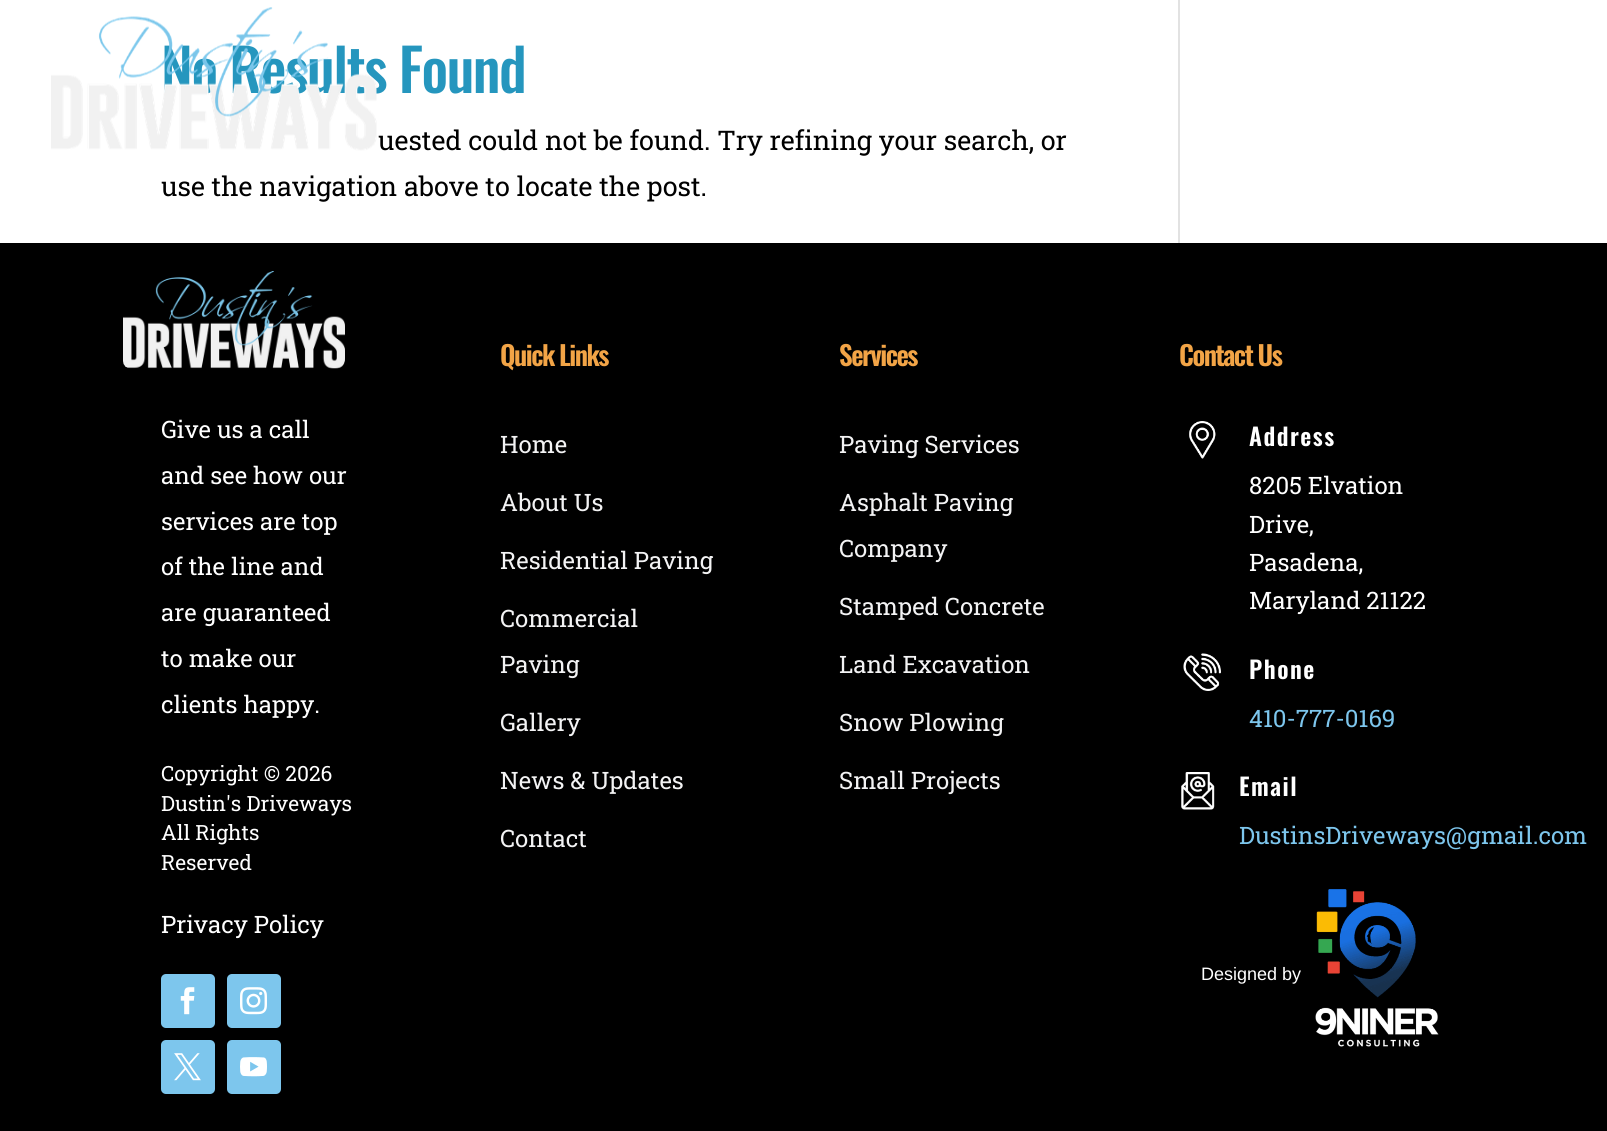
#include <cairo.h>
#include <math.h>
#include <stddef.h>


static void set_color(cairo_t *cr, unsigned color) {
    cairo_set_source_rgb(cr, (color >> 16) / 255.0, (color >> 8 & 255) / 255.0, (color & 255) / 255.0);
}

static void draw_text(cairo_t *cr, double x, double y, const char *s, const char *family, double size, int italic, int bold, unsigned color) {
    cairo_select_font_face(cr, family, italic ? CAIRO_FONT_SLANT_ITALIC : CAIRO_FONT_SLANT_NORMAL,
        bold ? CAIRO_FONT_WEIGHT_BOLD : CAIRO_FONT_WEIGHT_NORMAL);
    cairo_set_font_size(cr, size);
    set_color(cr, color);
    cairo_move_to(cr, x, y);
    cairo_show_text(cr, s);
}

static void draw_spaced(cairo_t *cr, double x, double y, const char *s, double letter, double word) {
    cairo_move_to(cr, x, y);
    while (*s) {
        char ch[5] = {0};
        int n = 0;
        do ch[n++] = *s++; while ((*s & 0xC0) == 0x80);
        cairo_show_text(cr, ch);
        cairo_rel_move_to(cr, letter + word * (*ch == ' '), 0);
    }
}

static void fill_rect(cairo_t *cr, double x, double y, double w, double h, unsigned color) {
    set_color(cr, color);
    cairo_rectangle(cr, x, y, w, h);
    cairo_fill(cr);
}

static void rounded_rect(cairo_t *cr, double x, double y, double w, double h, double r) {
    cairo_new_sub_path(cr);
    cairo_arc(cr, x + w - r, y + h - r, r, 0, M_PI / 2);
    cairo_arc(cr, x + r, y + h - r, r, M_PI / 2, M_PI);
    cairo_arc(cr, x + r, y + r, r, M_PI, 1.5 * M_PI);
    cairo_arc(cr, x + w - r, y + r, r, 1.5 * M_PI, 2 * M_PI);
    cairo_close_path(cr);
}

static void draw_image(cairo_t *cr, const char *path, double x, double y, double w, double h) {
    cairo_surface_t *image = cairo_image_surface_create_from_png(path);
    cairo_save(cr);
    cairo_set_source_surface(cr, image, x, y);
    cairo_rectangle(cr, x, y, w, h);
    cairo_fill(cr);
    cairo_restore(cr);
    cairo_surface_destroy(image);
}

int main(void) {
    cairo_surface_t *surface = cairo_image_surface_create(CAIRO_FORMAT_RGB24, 1607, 1131);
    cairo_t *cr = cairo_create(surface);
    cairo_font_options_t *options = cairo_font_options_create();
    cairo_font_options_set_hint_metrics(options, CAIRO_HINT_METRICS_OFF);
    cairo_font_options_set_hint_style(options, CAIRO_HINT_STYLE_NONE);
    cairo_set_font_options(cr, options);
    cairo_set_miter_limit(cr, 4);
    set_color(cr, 0xFFFFFF);
    cairo_paint(cr);
    cairo_select_font_face(cr, "Oswald Medium", CAIRO_FONT_SLANT_NORMAL, CAIRO_FONT_WEIGHT_NORMAL);
    cairo_set_font_size(cr, 58.5);
    set_color(cr, 0x2596BE);
    draw_spaced(cr, 161, 93, "No Results Found", -1.5, 0);
    draw_image(cr, "assets/img1.png", 51, 7, 326, 144);
    draw_text(cr, 378, 150, "uested could not be found. Try refining your search, or", "Roboto Slab", 27, 0, 0, 0x000000);
    draw_text(cr, 161, 196, "use the navigation above to locate the post.", "Roboto Slab", 27, 0, 0, 0x000000);
    fill_rect(cr, 1178, 0, 2, 243, 0xE2E2E2);
    fill_rect(cr, 0, 243, 1607, 888, 0x000000);
    draw_image(cr, "assets/img2.png", 123, 271, 222, 98);
    draw_text(cr, 161, 438, "Give us a call", "Roboto Slab", 24, 0, 0, 0xFFFFFF);
    draw_text(cr, 161, 484, "and see how our", "Roboto Slab", 24, 0, 0, 0xFFFFFF);
    draw_text(cr, 161, 530, "services are top", "Roboto Slab", 24, 0, 0, 0xFFFFFF);
    draw_text(cr, 161, 575, "of the line and", "Roboto Slab", 24, 0, 0, 0xFFFFFF);
    draw_text(cr, 161, 621, "are guaranteed", "Roboto Slab", 24, 0, 0, 0xFFFFFF);
    draw_text(cr, 161, 667, "to make our", "Roboto Slab", 24, 0, 0, 0xFFFFFF);
    draw_text(cr, 161, 713, "clients happy.", "Roboto Slab", 24, 0, 0, 0xFFFFFF);
    draw_text(cr, 161, 781, "Copyright © 2026", "Roboto Slab", 21, 0, 0, 0xFFFFFF);
    draw_text(cr, 161, 811, "Dustin's Driveways", "Roboto Slab", 21, 0, 0, 0xFFFFFF);
    draw_text(cr, 161, 840, "All Rights", "Roboto Slab", 21, 0, 0, 0xFFFFFF);
    draw_text(cr, 161, 870, "Reserved", "Roboto Slab", 21, 0, 0, 0xFFFFFF);
    draw_text(cr, 161, 933, "Privacy Policy", "Roboto Slab", 24, 0, 0, 0xFFFFFF);
    set_color(cr, 0x7DC6ED);
    rounded_rect(cr, 161, 974, 54, 54, 5);
    cairo_fill(cr);
    draw_image(cr, "assets/img3.png", 180, 987, 15, 28);
    rounded_rect(cr, 227, 974, 54, 54, 5);
    cairo_fill(cr);
    draw_image(cr, "assets/img4.png", 240, 987, 27, 28);
    rounded_rect(cr, 161, 1040, 54, 54, 5);
    cairo_fill(cr);
    draw_image(cr, "assets/img5.png", 174, 1053, 27, 28);
    rounded_rect(cr, 227, 1040, 54, 54, 5);
    cairo_fill(cr);
    draw_image(cr, "assets/img6.png", 240, 1057, 27, 20);
    cairo_select_font_face(cr, "Oswald SemiBold", CAIRO_FONT_SLANT_NORMAL, CAIRO_FONT_WEIGHT_NORMAL);
    cairo_set_font_size(cr, 27);
    set_color(cr, 0xF2A446);
    draw_spaced(cr, 500, 366, "Quick Links", -1.5, 0);
    draw_text(cr, 500, 453, "Home", "Roboto Slab", 24, 0, 0, 0xF3F3F4);
    draw_text(cr, 500, 511, "About Us", "Roboto Slab", 24, 0, 0, 0xF3F3F4);
    draw_text(cr, 500, 569, "Residential Paving", "Roboto Slab", 24, 0, 0, 0xF3F3F4);
    draw_text(cr, 500, 627, "Commercial", "Roboto Slab", 24, 0, 0, 0xF3F3F4);
    draw_text(cr, 500, 673, "Paving", "Roboto Slab", 24, 0, 0, 0xF3F3F4);
    draw_text(cr, 500, 731, "Gallery", "Roboto Slab", 24, 0, 0, 0xF3F3F4);
    draw_text(cr, 500, 789, "News & Updates", "Roboto Slab", 24, 0, 0, 0xF3F3F4);
    draw_text(cr, 500, 847, "Contact", "Roboto Slab", 24, 0, 0, 0xF3F3F4);
    cairo_select_font_face(cr, "Oswald SemiBold", CAIRO_FONT_SLANT_NORMAL, CAIRO_FONT_WEIGHT_NORMAL);
    cairo_set_font_size(cr, 27);
    set_color(cr, 0xF2A446);
    draw_spaced(cr, 839, 366, "Services", -1.5, 0);
    draw_text(cr, 839, 453, "Paving Services", "Roboto Slab", 24, 0, 0, 0xF3F3F4);
    draw_text(cr, 839, 511, "Asphalt Paving", "Roboto Slab", 24, 0, 0, 0xF3F3F4);
    draw_text(cr, 839, 557, "Company", "Roboto Slab", 24, 0, 0, 0xF3F3F4);
    draw_text(cr, 839, 615, "Stamped Concrete", "Roboto Slab", 24, 0, 0, 0xF3F3F4);
    draw_text(cr, 839, 673, "Land Excavation", "Roboto Slab", 24, 0, 0, 0xF3F3F4);
    draw_text(cr, 839, 731, "Snow Plowing", "Roboto Slab", 24, 0, 0, 0xF3F3F4);
    draw_text(cr, 839, 789, "Small Projects", "Roboto Slab", 24, 0, 0, 0xF3F3F4);
    cairo_select_font_face(cr, "Oswald SemiBold", CAIRO_FONT_SLANT_NORMAL, CAIRO_FONT_WEIGHT_NORMAL);
    cairo_set_font_size(cr, 27);
    set_color(cr, 0xF2A446);
    draw_spaced(cr, 1179, 366, "Contact Us", -1.5, 0);
    draw_image(cr, "assets/img7.png", 1189, 421, 27, 38);
    cairo_set_font_size(cr, 24);
    set_color(cr, 0xFFFFFF);
    draw_spaced(cr, 1249, 446, "Address", 1.5, 0);
    draw_text(cr, 1249, 494, "8205 Elvation", "Roboto Slab", 24, 0, 0, 0xFFFFFF);
    draw_text(cr, 1249, 533, "Drive,", "Roboto Slab", 24, 0, 0, 0xFFFFFF);
    draw_text(cr, 1249, 571, "Pasadena,", "Roboto Slab", 24, 0, 0, 0xFFFFFF);
    draw_text(cr, 1249, 609, "Maryland 21122", "Roboto Slab", 24, 0, 0, 0xFFFFFF);
    draw_image(cr, "assets/img8.png", 1183, 653, 38, 38);
    cairo_select_font_face(cr, "Oswald SemiBold", CAIRO_FONT_SLANT_NORMAL, CAIRO_FONT_WEIGHT_NORMAL);
    draw_spaced(cr, 1249, 679, "Phone", 1.5, 0);
    draw_text(cr, 1249, 727, "410-777-0169", "Roboto Slab", 24, 0, 0, 0x7DC6ED);
    draw_image(cr, "assets/img9.png", 1181, 772, 34, 38);
    cairo_select_font_face(cr, "Oswald SemiBold", CAIRO_FONT_SLANT_NORMAL, CAIRO_FONT_WEIGHT_NORMAL);
    set_color(cr, 0xFFFFFF);
    draw_spaced(cr, 1239, 796, "Email", 1.5, 0);
    draw_text(cr, 1239, 844, "DustinsDriveways@gmail.com", "Roboto Slab", 24, 0, 0, 0x7DC6ED);
    draw_text(cr, 1201, 980, "Designed by", "Liberation Sans", 18, 0, 0, 0xFFFFFF);
    draw_image(cr, "assets/img10.png", 1315, 889, 124, 158);
    cairo_surface_write_to_png(surface, "output.png");
    cairo_font_options_destroy(options);
    cairo_destroy(cr);
    cairo_surface_destroy(surface);
    return 0;
}
